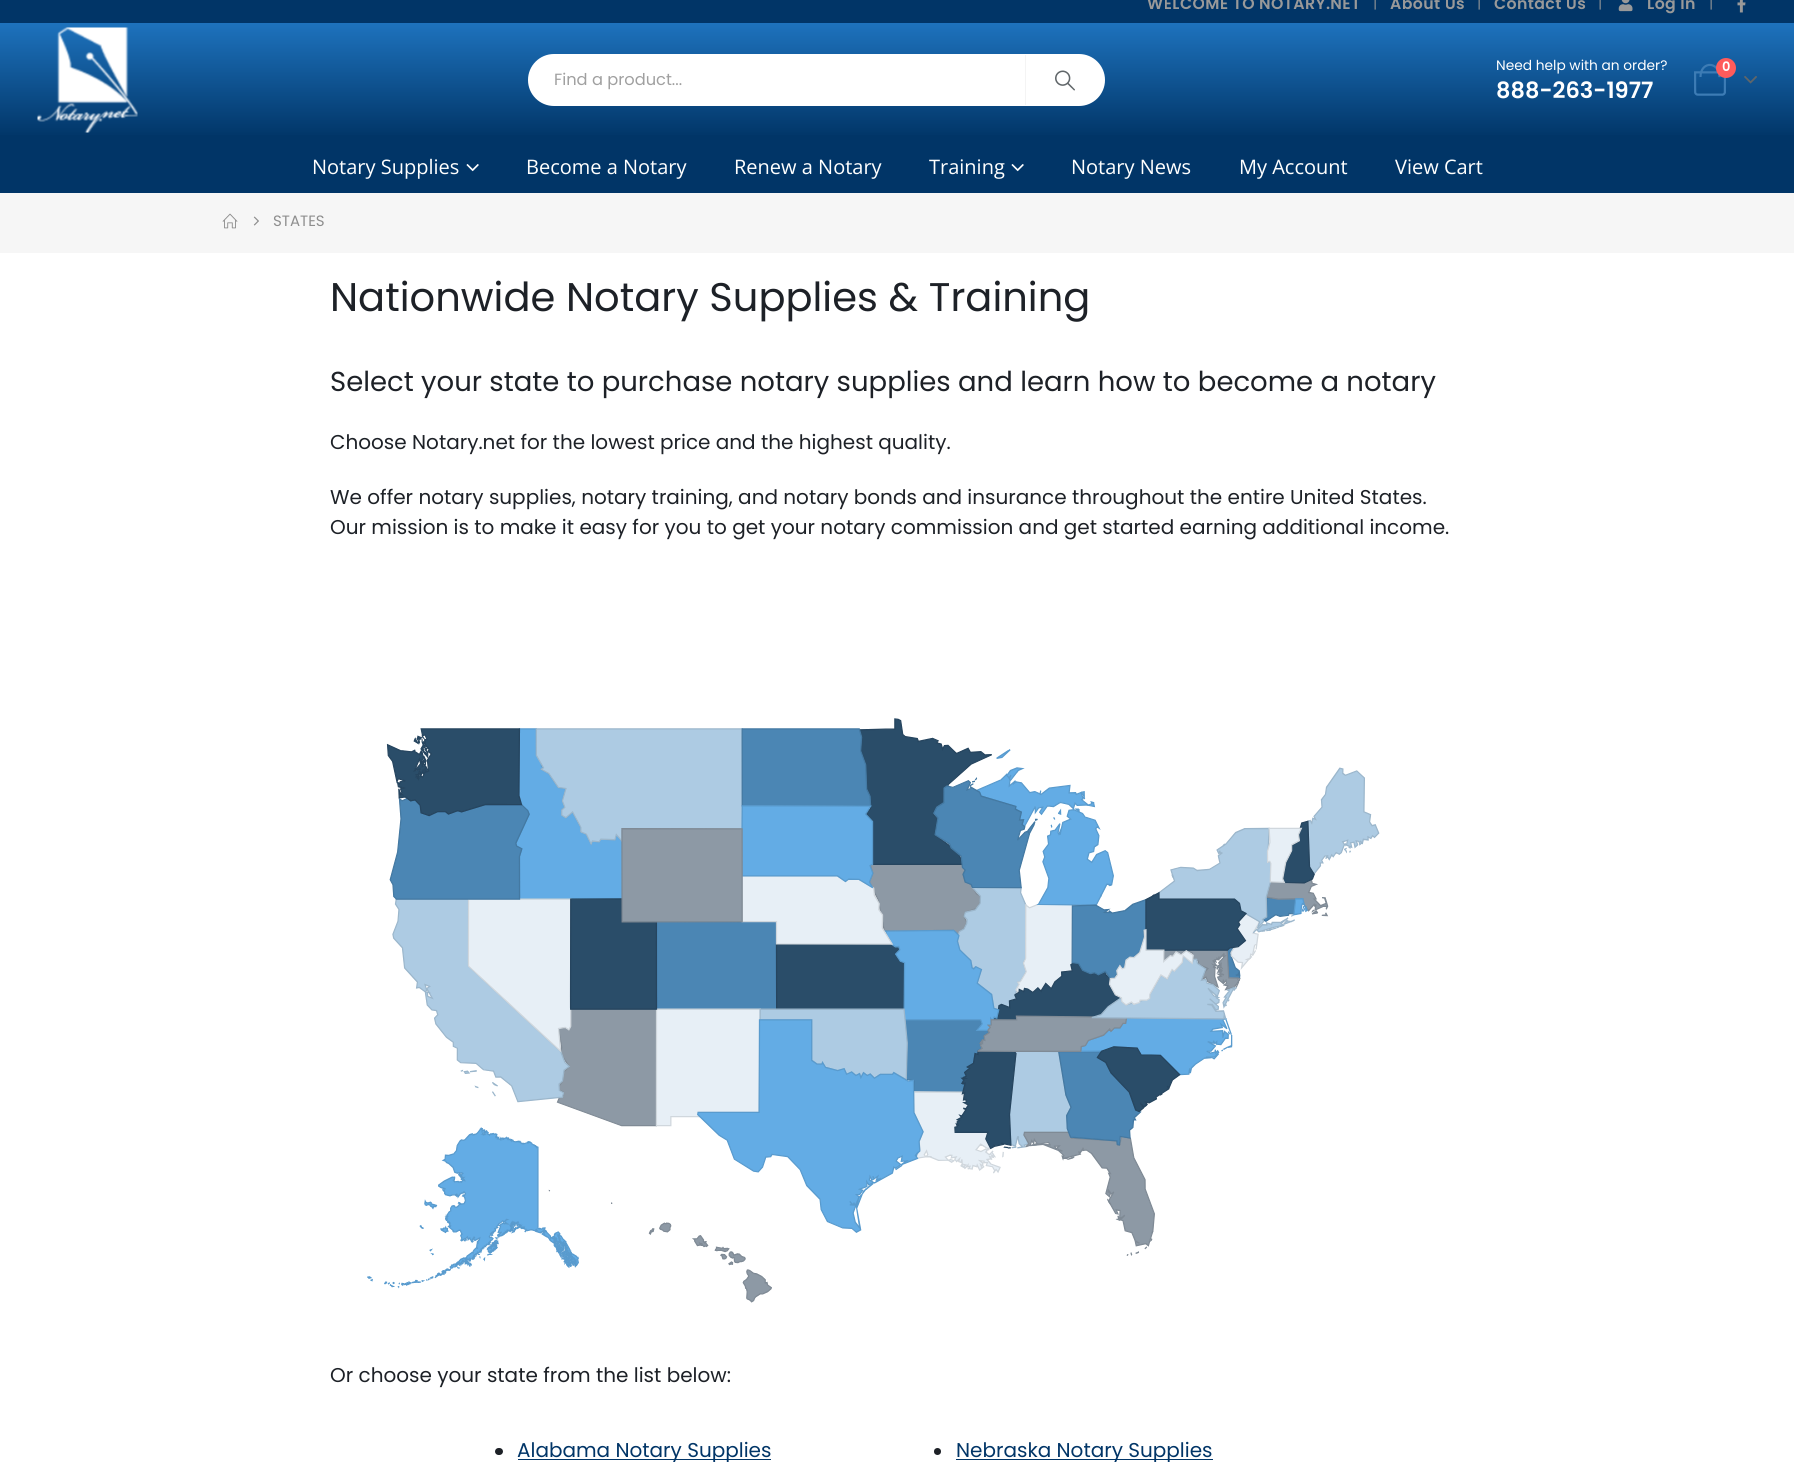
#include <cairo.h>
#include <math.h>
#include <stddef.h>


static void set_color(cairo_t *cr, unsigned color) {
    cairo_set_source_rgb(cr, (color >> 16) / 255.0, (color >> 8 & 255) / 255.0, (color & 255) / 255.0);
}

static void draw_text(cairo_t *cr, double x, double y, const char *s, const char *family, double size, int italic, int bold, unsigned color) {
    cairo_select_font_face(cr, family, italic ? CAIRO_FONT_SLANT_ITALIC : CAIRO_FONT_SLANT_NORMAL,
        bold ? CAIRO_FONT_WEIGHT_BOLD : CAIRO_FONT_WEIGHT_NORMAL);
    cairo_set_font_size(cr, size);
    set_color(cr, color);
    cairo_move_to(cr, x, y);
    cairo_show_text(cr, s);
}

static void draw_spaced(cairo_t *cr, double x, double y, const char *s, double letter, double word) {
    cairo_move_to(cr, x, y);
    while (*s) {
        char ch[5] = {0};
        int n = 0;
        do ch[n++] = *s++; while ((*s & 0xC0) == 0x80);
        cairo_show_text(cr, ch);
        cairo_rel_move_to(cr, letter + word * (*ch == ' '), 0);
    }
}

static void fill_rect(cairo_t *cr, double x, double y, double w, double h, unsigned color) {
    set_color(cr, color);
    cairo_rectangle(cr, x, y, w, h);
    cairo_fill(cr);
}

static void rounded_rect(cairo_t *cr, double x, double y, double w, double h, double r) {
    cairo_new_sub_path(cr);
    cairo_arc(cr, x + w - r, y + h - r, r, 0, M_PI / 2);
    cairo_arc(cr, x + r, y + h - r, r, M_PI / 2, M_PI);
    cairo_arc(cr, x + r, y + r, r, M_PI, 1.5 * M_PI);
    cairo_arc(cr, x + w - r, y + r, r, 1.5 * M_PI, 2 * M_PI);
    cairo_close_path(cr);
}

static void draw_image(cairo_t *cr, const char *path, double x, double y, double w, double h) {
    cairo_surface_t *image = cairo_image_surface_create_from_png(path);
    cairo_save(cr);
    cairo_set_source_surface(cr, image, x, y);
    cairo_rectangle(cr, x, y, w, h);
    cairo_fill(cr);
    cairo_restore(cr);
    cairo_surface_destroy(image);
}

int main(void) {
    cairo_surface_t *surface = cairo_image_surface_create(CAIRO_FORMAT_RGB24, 1794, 1462);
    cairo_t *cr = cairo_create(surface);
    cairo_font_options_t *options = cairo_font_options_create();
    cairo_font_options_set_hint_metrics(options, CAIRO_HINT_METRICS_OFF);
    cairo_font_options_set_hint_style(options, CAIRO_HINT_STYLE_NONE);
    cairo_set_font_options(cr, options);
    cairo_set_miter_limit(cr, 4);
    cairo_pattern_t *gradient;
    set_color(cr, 0xF6F6F6);
    cairo_paint(cr);
    fill_rect(cr, 0, 0, 1794, 193, 0x013567);
    cairo_select_font_face(cr, "Poppins SemiBold", CAIRO_FONT_SLANT_NORMAL, CAIRO_FONT_WEIGHT_NORMAL);
    cairo_set_font_size(cr, 15.75);
    set_color(cr, 0x999999);
    draw_spaced(cr, 1147, 9, "WELCOME TO NOTARY.NET", 0.4, 0);
    draw_text(cr, 1373, 8, "|", "Poppins", 15, 0, 0, 0x7B858F);
    cairo_select_font_face(cr, "Poppins SemiBold", CAIRO_FONT_SLANT_NORMAL, CAIRO_FONT_WEIGHT_NORMAL);
    cairo_set_font_size(cr, 15.75);
    set_color(cr, 0x999999);
    draw_spaced(cr, 1390, 9, "About Us", 0.4, 0);
    draw_text(cr, 1477, 8, "|", "Poppins", 15, 0, 0, 0x7B858F);
    cairo_select_font_face(cr, "Poppins SemiBold", CAIRO_FONT_SLANT_NORMAL, CAIRO_FONT_WEIGHT_NORMAL);
    cairo_set_font_size(cr, 15.75);
    set_color(cr, 0x999999);
    draw_spaced(cr, 1494, 9, "Contact Us", 0.4, 0);
    draw_text(cr, 1598, 8, "|", "Poppins", 15, 0, 0, 0x7B858F);
    draw_image(cr, "assets/img1.png", 1618, 0, 15, 12);
    cairo_select_font_face(cr, "Poppins SemiBold", CAIRO_FONT_SLANT_NORMAL, CAIRO_FONT_WEIGHT_NORMAL);
    cairo_set_font_size(cr, 15.75);
    set_color(cr, 0x999999);
    draw_spaced(cr, 1647, 9, "Log In", 0.4, 0);
    draw_text(cr, 1709, 8, "|", "Poppins", 15, 0, 0, 0x7B858F);
    draw_image(cr, "assets/img2.png", 1737, 0, 9, 13);
    gradient = cairo_pattern_create_linear(898, 22, 898, 138);
    cairo_pattern_add_color_stop_rgba(gradient, 0, 0.118, 0.451, 0.745, 1);
    cairo_pattern_add_color_stop_rgba(gradient, 1, 0.004, 0.208, 0.404, 1);
    cairo_set_source(cr, gradient);
    cairo_pattern_destroy(gradient);
    cairo_rectangle(cr, 0, 23, 1794, 112);
    cairo_fill(cr);
    draw_image(cr, "assets/img3.png", 37, 27, 101, 106);
    set_color(cr, 0xFFFFFF);
    rounded_rect(cr, 528, 54, 577, 52, 26);
    cairo_fill(cr);
    fill_rect(cr, 1025, 55, 1, 50, 0xF4F4F4);
    draw_text(cr, 554, 85, "Find a product...", "Poppins", 16.25, 0, 0, 0xA0A0A0);
    draw_image(cr, "assets/img4.png", 1055, 70, 20, 21);
    draw_text(cr, 1496, 70, "Need help with an order?", "Poppins", 13.75, 0, 0, 0xFFFFFF);
    draw_text(cr, 1496, 98, "888-263-1977", "Poppins SemiBold", 22.5, 0, 0, 0xFFFFFF);
    draw_image(cr, "assets/img5.png", 1694, 63, 32, 33);
    set_color(cr, 0xFF5B5B);
    cairo_arc(cr, 1726, 68, 10, 0, 2 * M_PI);
    cairo_fill(cr);
    draw_text(cr, 1722, 71, "0", "Poppins SemiBold", 13, 0, 0, 0xFFFFFF);
    draw_image(cr, "assets/img6.png", 1744, 76, 13, 8);
    draw_text(cr, 312, 174, "Notary Supplies", "Open Sans", 20, 0, 0, 0xFFFFFF);
    draw_image(cr, "assets/img7.png", 466, 164, 13, 8);
    draw_text(cr, 526, 174, "Become a Notary", "Open Sans", 20, 0, 0, 0xFFFFFF);
    draw_text(cr, 734, 174, "Renew a Notary", "Open Sans", 20, 0, 0, 0xFFFFFF);
    draw_text(cr, 929, 174, "Training", "Open Sans", 20, 0, 0, 0xFFFFFF);
    draw_image(cr, "assets/img7.png", 1011, 164, 13, 8);
    draw_text(cr, 1071, 174, "Notary News", "Open Sans", 20, 0, 0, 0xFFFFFF);
    draw_text(cr, 1239, 174, "My Account", "Open Sans", 20, 0, 0, 0xFFFFFF);
    draw_text(cr, 1395, 174, "View Cart", "Open Sans", 20, 0, 0, 0xFFFFFF);
    draw_image(cr, "assets/img8.png", 222, 213, 16, 16);
    draw_image(cr, "assets/img9.png", 253, 216, 6, 10);
    draw_text(cr, 273, 226, "STATES", "Poppins", 15, 0, 0, 0x8E8E8E);
    fill_rect(cr, 0, 253, 1794, 1209, 0xFFFFFF);
    draw_text(cr, 330, 311, "Nationwide Notary Supplies & Training", "Poppins", 40, 0, 0, 0x1D2127);
    draw_text(cr, 330, 391, "Select your state to purchase notary supplies and learn how to become a notary", "Poppins", 27.5, 0, 0, 0x1D2127);
    draw_text(cr, 330, 449, "Choose Notary.net for the lowest price and the highest quality.", "Poppins", 20, 0, 0, 0x1D2127);
    draw_text(cr, 330, 504, "We offer notary supplies, notary training, and notary bonds and insurance throughout the entire United States.", "Poppins", 20, 0, 0, 0x1D2127);
    draw_text(cr, 330, 534, "Our mission is to make it easy for you to get your notary commission and get started earning additional income.", "Poppins", 20, 0, 0, 0x1D2127);
    draw_image(cr, "assets/img10.png", 367, 718, 1013, 585);
    draw_text(cr, 330, 1382, "Or choose your state from the list below:", "Poppins", 20, 0, 0, 0x1D2127);
    rounded_rect(cr, 495, 1448, 8, 7, 3.5);
    cairo_fill(cr);
    fill_rect(cr, 518, 1459, 253, 1, 0x013567);
    draw_text(cr, 517, 1457, "Alabama Notary Supplies", "Poppins", 20, 0, 0, 0x013567);
    set_color(cr, 0x1D2127);
    cairo_new_path(cr);
    cairo_arc(cr, 937.5, 1451.5, 3.5, 0, 2 * M_PI);
    cairo_fill(cr);
    fill_rect(cr, 956, 1459, 257, 1, 0x013567);
    draw_text(cr, 956, 1457, "Nebraska Notary Supplies", "Poppins", 20, 0, 0, 0x013567);
    cairo_surface_write_to_png(surface, "output.png");
    cairo_font_options_destroy(options);
    cairo_destroy(cr);
    cairo_surface_destroy(surface);
    return 0;
}
